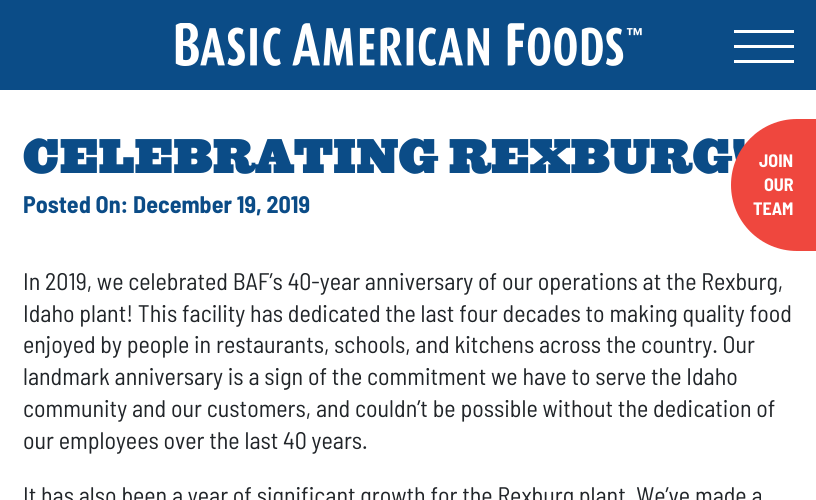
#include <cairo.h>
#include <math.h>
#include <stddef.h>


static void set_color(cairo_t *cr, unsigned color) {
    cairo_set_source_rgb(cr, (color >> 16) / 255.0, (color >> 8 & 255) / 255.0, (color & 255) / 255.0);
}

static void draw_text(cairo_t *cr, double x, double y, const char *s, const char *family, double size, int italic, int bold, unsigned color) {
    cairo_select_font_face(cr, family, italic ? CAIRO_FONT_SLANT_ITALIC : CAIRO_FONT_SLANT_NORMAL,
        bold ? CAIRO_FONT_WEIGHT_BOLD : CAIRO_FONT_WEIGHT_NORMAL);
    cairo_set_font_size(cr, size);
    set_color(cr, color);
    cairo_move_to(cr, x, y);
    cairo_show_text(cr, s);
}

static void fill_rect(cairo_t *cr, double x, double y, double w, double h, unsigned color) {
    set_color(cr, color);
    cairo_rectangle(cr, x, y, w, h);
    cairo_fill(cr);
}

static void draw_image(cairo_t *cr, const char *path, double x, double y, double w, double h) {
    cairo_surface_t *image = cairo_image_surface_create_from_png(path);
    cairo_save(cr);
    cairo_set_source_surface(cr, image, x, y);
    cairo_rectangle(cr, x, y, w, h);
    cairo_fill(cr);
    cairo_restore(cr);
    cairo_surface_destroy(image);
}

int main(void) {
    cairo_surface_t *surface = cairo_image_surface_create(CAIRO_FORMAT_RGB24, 816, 500);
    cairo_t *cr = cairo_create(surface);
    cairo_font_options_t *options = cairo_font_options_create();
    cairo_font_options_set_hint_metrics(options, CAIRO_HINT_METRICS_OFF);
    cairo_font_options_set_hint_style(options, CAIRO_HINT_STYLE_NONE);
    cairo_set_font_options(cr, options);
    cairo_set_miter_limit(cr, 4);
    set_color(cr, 0xFFFFFF);
    cairo_paint(cr);
    fill_rect(cr, 0, 0, 816, 90, 0x0B4C87);
    draw_image(cr, "assets/img1.png", 175, 23, 467, 43);
    fill_rect(cr, 734, 30, 60, 3, 0xFFFFFF);
    fill_rect(cr, 734, 45, 60, 3, 0xFFFFFF);
    fill_rect(cr, 734, 60, 60, 3, 0xFFFFFF);
    draw_text(cr, 23, 173, "CELEBRATING REXBURG!", "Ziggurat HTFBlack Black", 45, 0, 0, 0x0B4C87);
    draw_text(cr, 23, 213, "Posted On: December 19, 2019", "Barlow Semi Condensed", 24, 0, 1, 0x0B4C87);
    draw_text(cr, 23, 290, "In 2019, we celebrated BAF’s 40-year anniversary of our operations at the Rexburg,", "Barlow Semi Condensed", 24, 0, 0, 0x212529);
    draw_text(cr, 23, 322, "Idaho plant! This facility has dedicated the last four decades to making quality food", "Barlow Semi Condensed", 24, 0, 0, 0x212529);
    draw_text(cr, 23, 353, "enjoyed by people in restaurants, schools, and kitchens across the country. Our", "Barlow Semi Condensed", 24, 0, 0, 0x212529);
    draw_text(cr, 23, 385, "landmark anniversary is a sign of the commitment we have to serve the Idaho", "Barlow Semi Condensed", 24, 0, 0, 0x212529);
    draw_text(cr, 23, 417, "community and our customers, and couldn’t be possible without the dedication of", "Barlow Semi Condensed", 24, 0, 0, 0x212529);
    draw_text(cr, 23, 449, "our employees over the last 40 years.", "Barlow Semi Condensed", 24, 0, 0, 0x212529);
    draw_text(cr, 23, 504, "It has also been a year of significant growth for the Rexburg plant. We’ve made a", "Barlow Semi Condensed", 24, 0, 0, 0x212529);
    set_color(cr, 0xEF473E);
    cairo_new_path(cr);
    cairo_move_to(cr, 797, 119);
    cairo_line_to(cr, 816, 119);
    cairo_line_to(cr, 816, 251);
    cairo_line_to(cr, 797, 251);
    cairo_curve_to(cr, 760.5, 251, 731, 221.5, 731, 185);
    cairo_curve_to(cr, 731, 148.5, 760.5, 119, 797, 119);
    cairo_close_path(cr);
    cairo_fill(cr);
    draw_text(cr, 759, 167, "JOIN", "Barlow Semi Condensed", 18, 0, 1, 0xFFFFFF);
    draw_text(cr, 764, 191, "OUR", "Barlow Semi Condensed", 18, 0, 1, 0xFFFFFF);
    draw_text(cr, 753, 215, "TEAM", "Barlow Semi Condensed", 18, 0, 1, 0xFFFFFF);
    cairo_surface_write_to_png(surface, "output.png");
    cairo_font_options_destroy(options);
    cairo_destroy(cr);
    cairo_surface_destroy(surface);
    return 0;
}
